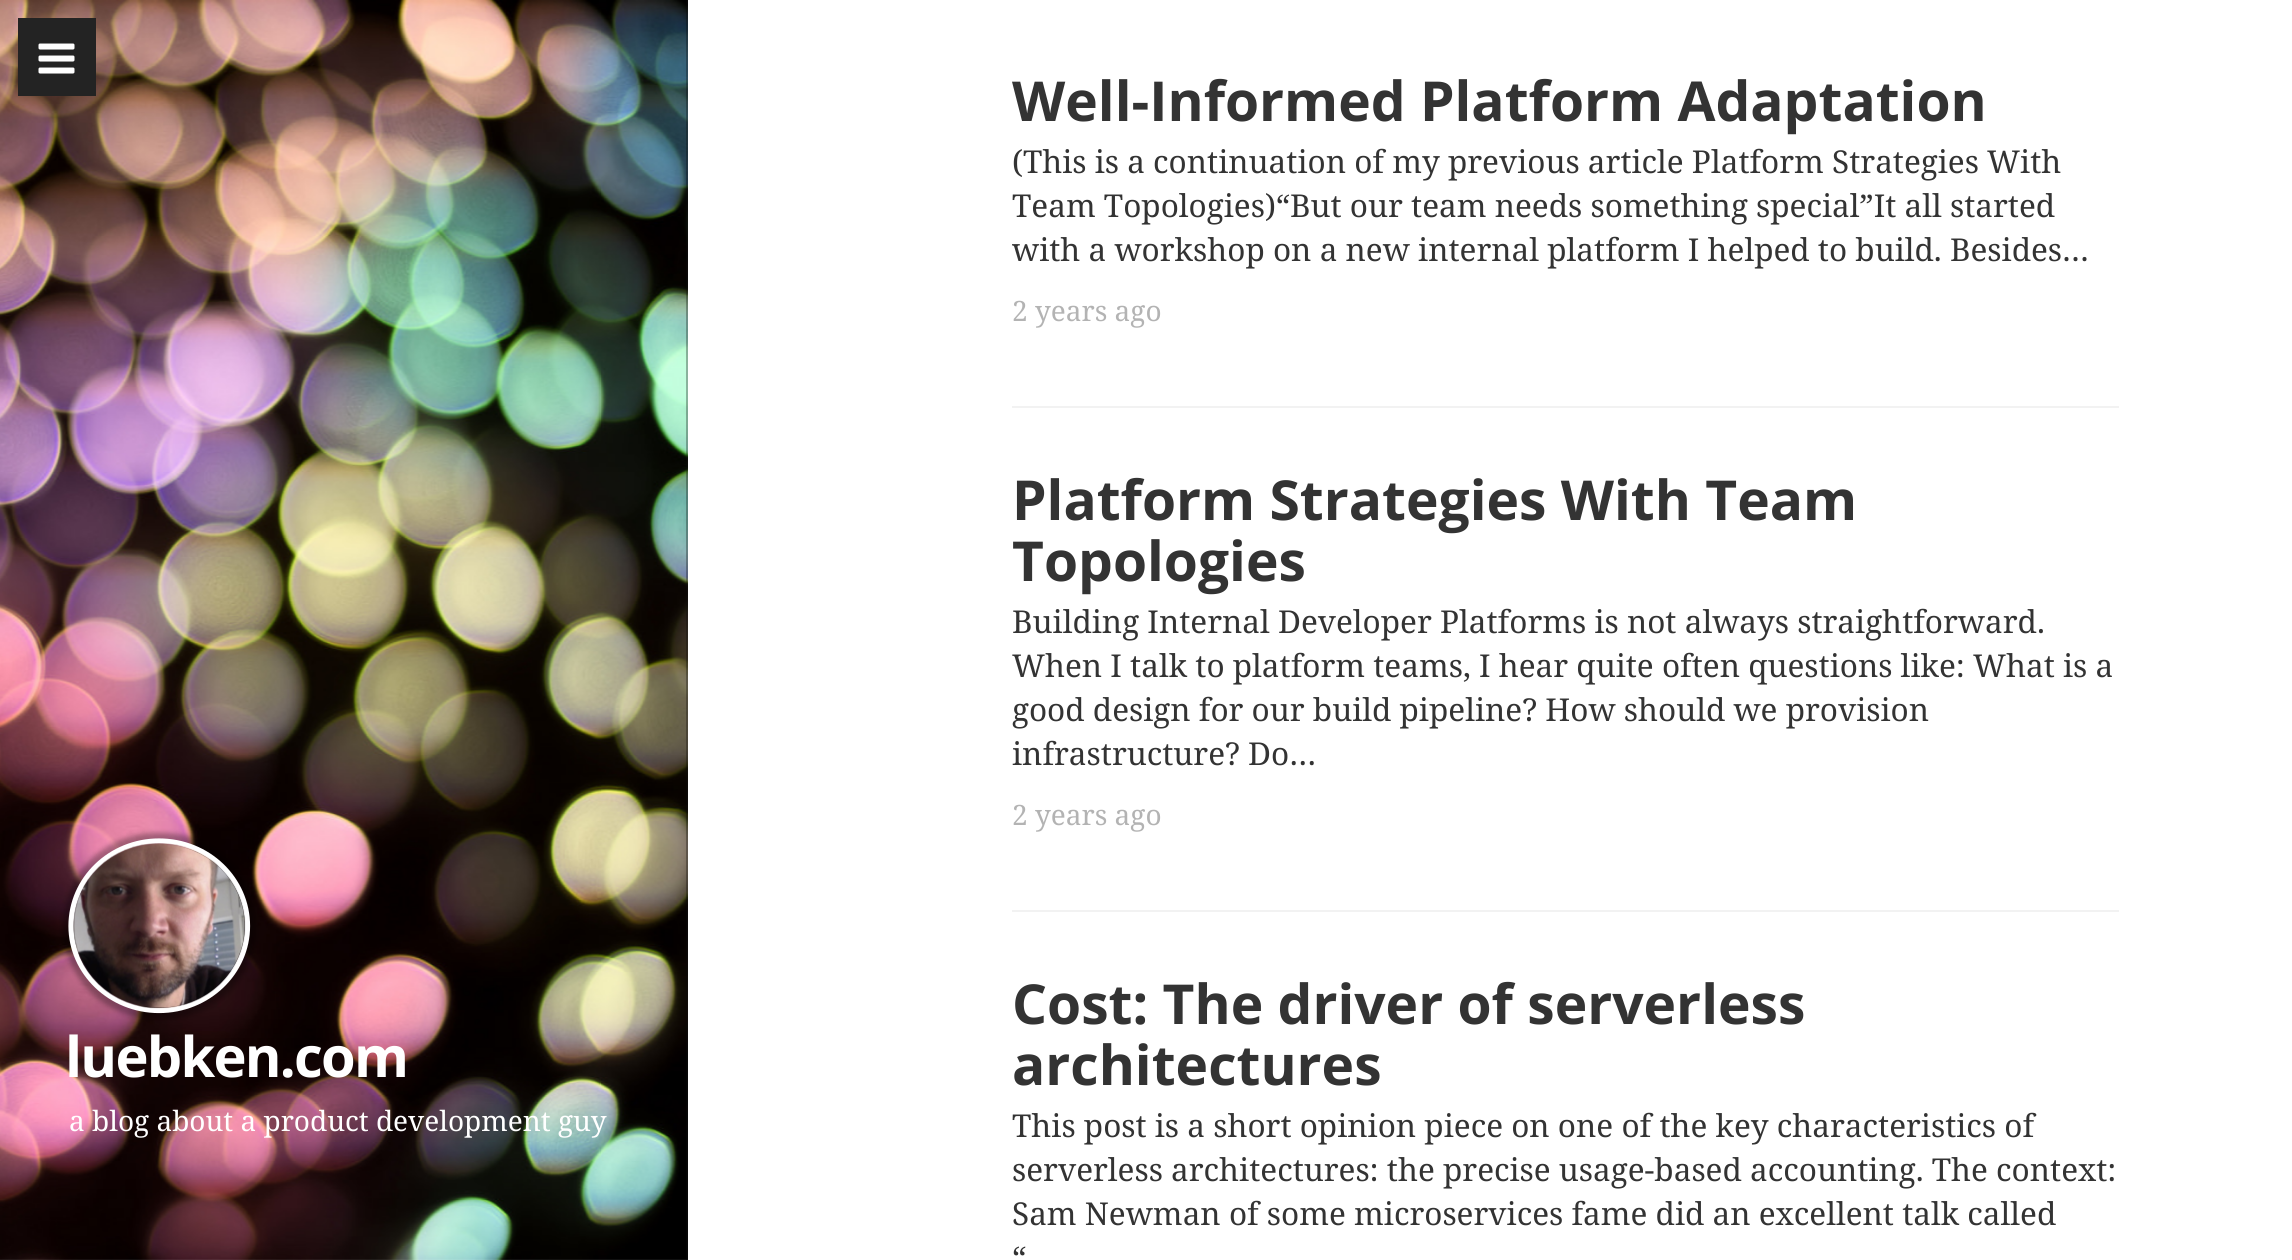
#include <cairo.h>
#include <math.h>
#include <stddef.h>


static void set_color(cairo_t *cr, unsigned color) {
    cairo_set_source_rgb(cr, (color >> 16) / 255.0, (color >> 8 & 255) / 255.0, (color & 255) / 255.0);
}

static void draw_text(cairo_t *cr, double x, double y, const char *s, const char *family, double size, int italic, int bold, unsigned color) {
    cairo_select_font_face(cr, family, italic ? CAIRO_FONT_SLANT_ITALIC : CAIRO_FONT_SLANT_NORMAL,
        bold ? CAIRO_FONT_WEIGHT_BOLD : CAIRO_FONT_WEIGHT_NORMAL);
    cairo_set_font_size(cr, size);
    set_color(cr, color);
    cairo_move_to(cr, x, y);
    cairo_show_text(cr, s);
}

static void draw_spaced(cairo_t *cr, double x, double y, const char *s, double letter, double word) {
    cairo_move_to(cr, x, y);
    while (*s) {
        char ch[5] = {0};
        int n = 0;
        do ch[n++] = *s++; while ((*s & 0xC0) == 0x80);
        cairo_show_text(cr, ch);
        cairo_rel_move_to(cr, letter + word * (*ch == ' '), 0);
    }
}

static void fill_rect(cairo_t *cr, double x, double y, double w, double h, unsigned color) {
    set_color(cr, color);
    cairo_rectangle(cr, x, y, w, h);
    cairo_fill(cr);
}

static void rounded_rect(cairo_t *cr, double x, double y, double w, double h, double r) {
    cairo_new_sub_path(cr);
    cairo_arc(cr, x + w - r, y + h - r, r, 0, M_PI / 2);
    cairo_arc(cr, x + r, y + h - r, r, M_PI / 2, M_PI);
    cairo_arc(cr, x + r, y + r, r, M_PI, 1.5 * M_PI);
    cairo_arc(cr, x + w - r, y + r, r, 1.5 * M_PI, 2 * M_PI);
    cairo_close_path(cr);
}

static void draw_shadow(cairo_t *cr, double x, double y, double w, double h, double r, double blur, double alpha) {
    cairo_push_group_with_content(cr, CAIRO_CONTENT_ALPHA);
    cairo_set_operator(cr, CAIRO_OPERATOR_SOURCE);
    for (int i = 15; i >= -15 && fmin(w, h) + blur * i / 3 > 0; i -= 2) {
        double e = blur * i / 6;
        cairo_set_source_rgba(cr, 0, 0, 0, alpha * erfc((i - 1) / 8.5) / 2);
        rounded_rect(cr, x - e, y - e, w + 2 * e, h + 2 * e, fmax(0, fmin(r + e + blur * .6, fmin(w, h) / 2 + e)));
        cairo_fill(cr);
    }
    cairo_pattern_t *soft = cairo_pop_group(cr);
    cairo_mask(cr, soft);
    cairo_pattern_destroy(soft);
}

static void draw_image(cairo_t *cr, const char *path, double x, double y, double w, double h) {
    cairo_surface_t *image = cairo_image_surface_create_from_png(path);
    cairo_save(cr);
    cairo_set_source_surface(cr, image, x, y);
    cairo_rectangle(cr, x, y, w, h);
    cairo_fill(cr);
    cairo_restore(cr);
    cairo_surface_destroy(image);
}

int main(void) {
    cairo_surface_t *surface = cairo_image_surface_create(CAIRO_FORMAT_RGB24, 2292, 1260);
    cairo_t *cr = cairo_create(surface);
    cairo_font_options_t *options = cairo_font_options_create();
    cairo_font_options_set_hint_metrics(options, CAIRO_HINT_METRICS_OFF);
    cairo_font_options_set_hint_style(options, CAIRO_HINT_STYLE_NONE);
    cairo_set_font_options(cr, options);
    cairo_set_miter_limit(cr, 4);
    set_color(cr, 0xFFFFFF);
    cairo_paint(cr);
    draw_image(cr, "assets/img2.png", 0, 0, 688, 1260);
    fill_rect(cr, 18, 18, 78, 78, 0x232323);
    draw_image(cr, "assets/img1.png", 38, 43, 37, 31);
    cairo_set_source_rgba(cr, 0, 0, 0, 0.3);
    cairo_rectangle(cr, 686, 0, 2, 1260);
    cairo_fill(cr);
    set_color(cr, 0x000000);
    draw_shadow(cr, 63, 833, 193, 186, 93, 2.5, 0.3);
    cairo_new_path(cr);
    cairo_move_to(cr, 159, 841);
    cairo_curve_to(cr, 208, 841, 247.5, 879, 247.5, 926);
    cairo_curve_to(cr, 247.5, 972.5, 208, 1010.5, 159, 1010.5);
    cairo_curve_to(cr, 110.5, 1010.5, 71, 972.5, 71, 926);
    cairo_curve_to(cr, 71, 879, 110.5, 841, 159, 841);
    cairo_close_path(cr);
    set_color(cr, 0xFFFFFF);
    cairo_set_line_width(cr, 5.2);
    cairo_stroke(cr);
    draw_image(cr, "assets/img3.png", 73, 843, 173, 166);
    cairo_select_font_face(cr, "Open Sans", CAIRO_FONT_SLANT_NORMAL, CAIRO_FONT_WEIGHT_BOLD);
    cairo_set_font_size(cr, 56);
    draw_spaced(cr, 65, 1077, "luebken.com", -1.75, 0);
    draw_text(cr, 69, 1131, "a blog about a product development guy", "Noto Serif", 28, 0, 0, 0xFFFFFF);
    fill_rect(cr, 1012, 406, 1107, 2, 0xF2F2F2);
    draw_text(cr, 1012, 121, "Well-Informed Platform Adaptation", "Open Sans", 55.1, 0, 1, 0x333333);
    draw_text(cr, 1012, 173, "(This is a continuation of my previous article Platform Strategies With", "Noto Serif", 31.5, 0, 0, 0x333333);
    draw_text(cr, 1012, 217, "Team Topologies)“But our team needs something special”It all started", "Noto Serif", 31.5, 0, 0, 0x333333);
    draw_text(cr, 1012, 261, "with a workshop on a new internal platform I helped to build. Besides…", "Noto Serif", 31.5, 0, 0, 0x333333);
    draw_text(cr, 1012, 321, "2 years ago", "Noto Serif", 28, 0, 0, 0xB3B3B3);
    fill_rect(cr, 1012, 910, 1107, 2, 0xF2F2F2);
    draw_text(cr, 1012, 520, "Platform Strategies With Team", "Open Sans", 55.1, 0, 1, 0x333333);
    draw_text(cr, 1012, 581, "Topologies", "Open Sans", 55.1, 0, 1, 0x333333);
    draw_text(cr, 1012, 633, "Building Internal Developer Platforms is not always straightforward.", "Noto Serif", 31.5, 0, 0, 0x333333);
    draw_text(cr, 1012, 677, "When I talk to platform teams, I hear quite often questions like: What is a", "Noto Serif", 31.5, 0, 0, 0x333333);
    draw_text(cr, 1012, 721, "good design for our build pipeline? How should we provision", "Noto Serif", 31.5, 0, 0, 0x333333);
    draw_text(cr, 1012, 765, "infrastructure? Do…", "Noto Serif", 31.5, 0, 0, 0x333333);
    draw_text(cr, 1012, 825, "2 years ago", "Noto Serif", 28, 0, 0, 0xB3B3B3);
    draw_text(cr, 1012, 1024, "Cost: The driver of serverless", "Open Sans", 55.1, 0, 1, 0x333333);
    draw_text(cr, 1012, 1085, "architectures", "Open Sans", 55.1, 0, 1, 0x333333);
    draw_text(cr, 1012, 1137, "This post is a short opinion piece on one of the key characteristics of", "Noto Serif", 31.5, 0, 0, 0x333333);
    draw_text(cr, 1012, 1181, "serverless architectures: the precise usage-based accounting. The context:", "Noto Serif", 31.5, 0, 0, 0x333333);
    draw_text(cr, 1012, 1225, "Sam Newman of some microservices fame did an excellent talk called", "Noto Serif", 31.5, 0, 0, 0x333333);
    draw_text(cr, 1012, 1269, "“", "Noto Serif", 31.5, 0, 0, 0x333333);
    cairo_surface_write_to_png(surface, "output.png");
    cairo_font_options_destroy(options);
    cairo_destroy(cr);
    cairo_surface_destroy(surface);
    return 0;
}
